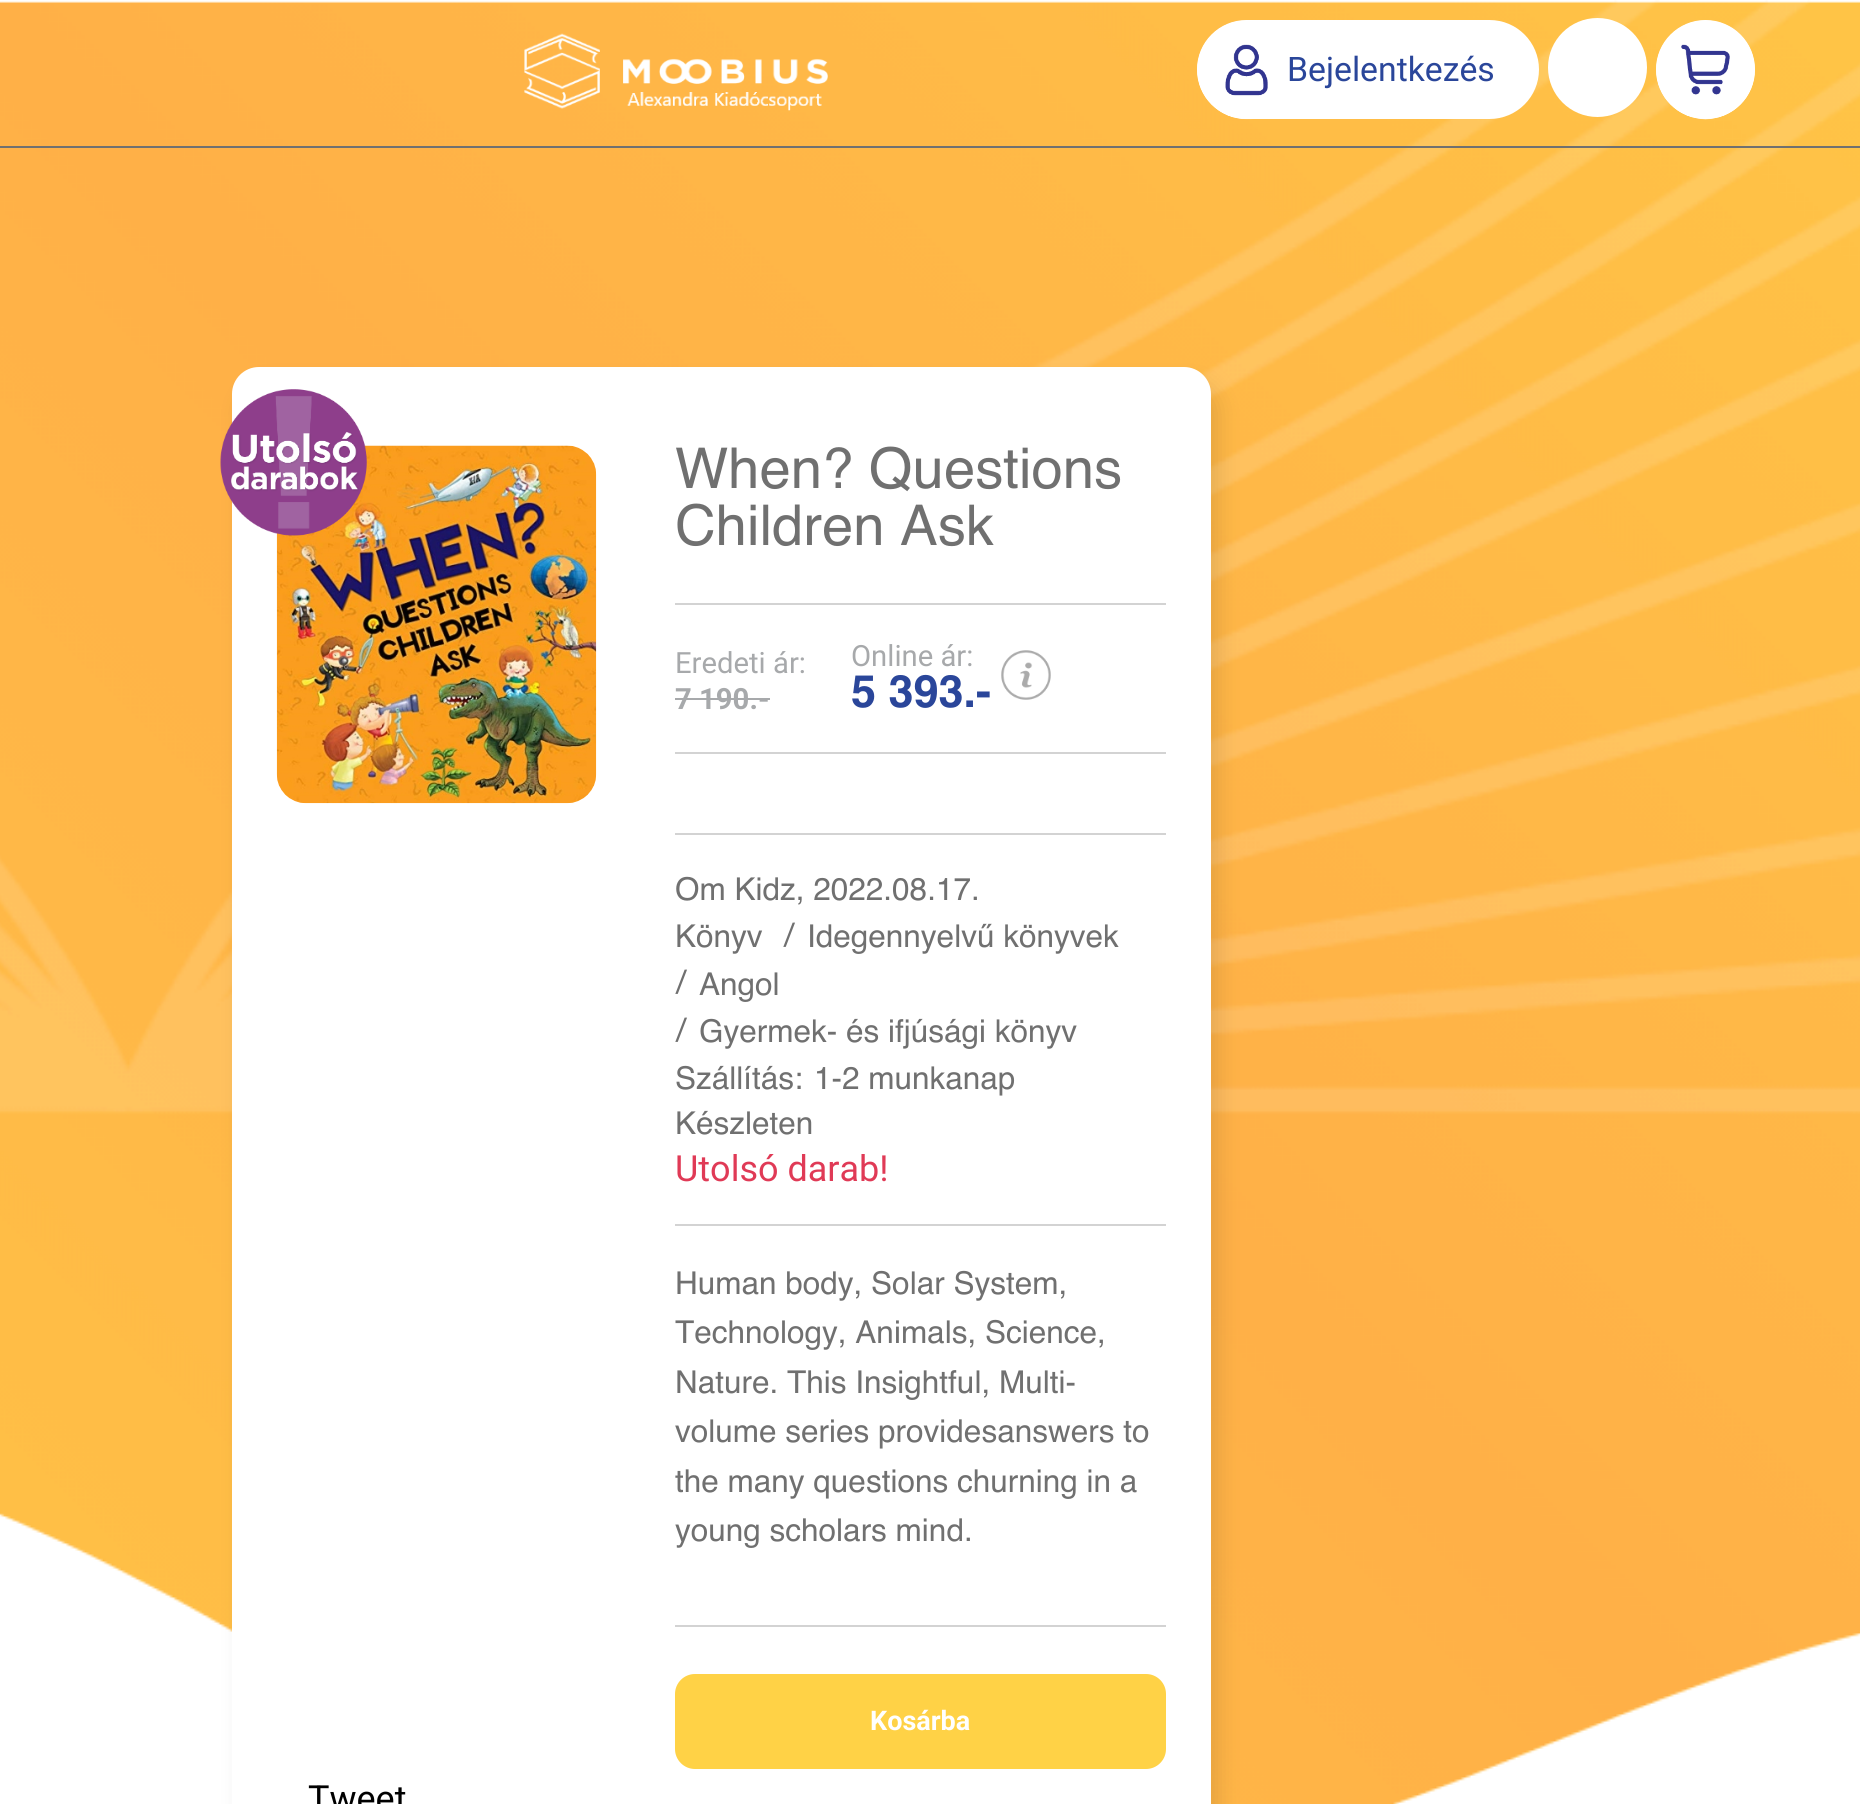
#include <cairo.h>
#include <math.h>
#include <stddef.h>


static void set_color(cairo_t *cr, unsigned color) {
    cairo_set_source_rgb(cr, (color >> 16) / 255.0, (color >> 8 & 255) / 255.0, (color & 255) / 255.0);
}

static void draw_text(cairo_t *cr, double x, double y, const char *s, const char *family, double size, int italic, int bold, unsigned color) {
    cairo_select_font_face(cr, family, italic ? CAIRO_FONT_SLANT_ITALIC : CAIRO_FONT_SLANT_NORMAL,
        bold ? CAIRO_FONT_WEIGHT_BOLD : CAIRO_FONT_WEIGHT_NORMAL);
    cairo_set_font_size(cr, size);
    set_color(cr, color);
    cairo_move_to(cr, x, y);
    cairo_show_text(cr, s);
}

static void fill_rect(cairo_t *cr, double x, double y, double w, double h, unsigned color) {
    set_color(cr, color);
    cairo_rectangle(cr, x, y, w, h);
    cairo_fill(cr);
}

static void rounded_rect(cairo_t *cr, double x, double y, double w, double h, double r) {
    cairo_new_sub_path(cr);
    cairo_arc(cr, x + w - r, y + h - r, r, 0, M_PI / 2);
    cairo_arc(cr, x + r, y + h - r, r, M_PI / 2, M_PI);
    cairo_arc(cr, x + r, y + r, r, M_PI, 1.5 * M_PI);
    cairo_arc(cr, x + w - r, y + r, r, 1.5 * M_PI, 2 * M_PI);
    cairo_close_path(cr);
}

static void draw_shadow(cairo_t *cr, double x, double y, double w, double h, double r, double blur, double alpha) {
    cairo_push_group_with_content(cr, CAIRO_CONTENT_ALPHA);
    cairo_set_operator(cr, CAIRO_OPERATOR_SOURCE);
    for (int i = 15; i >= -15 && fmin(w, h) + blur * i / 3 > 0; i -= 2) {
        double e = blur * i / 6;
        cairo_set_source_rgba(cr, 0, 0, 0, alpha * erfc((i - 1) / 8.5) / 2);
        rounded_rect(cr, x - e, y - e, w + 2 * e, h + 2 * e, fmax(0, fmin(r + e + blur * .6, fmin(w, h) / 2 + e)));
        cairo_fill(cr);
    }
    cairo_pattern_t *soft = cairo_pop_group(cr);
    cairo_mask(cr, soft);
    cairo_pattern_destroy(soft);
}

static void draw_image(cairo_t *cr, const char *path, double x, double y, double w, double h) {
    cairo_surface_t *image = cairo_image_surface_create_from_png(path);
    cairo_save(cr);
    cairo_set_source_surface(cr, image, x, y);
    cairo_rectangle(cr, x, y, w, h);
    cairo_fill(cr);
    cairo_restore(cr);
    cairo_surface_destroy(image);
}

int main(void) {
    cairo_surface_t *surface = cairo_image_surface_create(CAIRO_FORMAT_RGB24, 1860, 1804);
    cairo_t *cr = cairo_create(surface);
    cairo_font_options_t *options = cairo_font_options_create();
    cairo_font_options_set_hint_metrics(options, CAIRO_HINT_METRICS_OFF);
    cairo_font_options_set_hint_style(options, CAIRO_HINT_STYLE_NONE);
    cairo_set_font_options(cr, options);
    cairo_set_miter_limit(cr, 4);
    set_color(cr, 0xFFFFFF);
    cairo_paint(cr);
    draw_image(cr, "assets/img1.png", 0, 0, 1860, 1804);
    fill_rect(cr, 0, 146, 1860, 2, 0x707070);
    draw_image(cr, "assets/img2.png", 524, 33, 304, 78);
    set_color(cr, 0xFFFFFF);
    rounded_rect(cr, 1197, 20, 342, 99, 49.5);
    cairo_fill(cr);
    draw_image(cr, "assets/img3.png", 1197, 20, 71, 100);
    draw_text(cr, 1287, 81, "Bejelentkezés", "Roboto", 33.75, 0, 0, 0x2A469A);
    set_color(cr, 0xFFFFFF);
    cairo_new_path(cr);
    cairo_arc(cr, 1597.5, 67.5, 49.5, 0, 2 * M_PI);
    cairo_fill(cr);
    cairo_arc(cr, 1705.5, 69.5, 49.5, 0, 2 * M_PI);
    cairo_fill(cr);
    draw_image(cr, "assets/img4.png", 1656, 20, 99, 100);
    set_color(cr, 0x000000);
    draw_shadow(cr, 241, 383, 979, 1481, 27, 11, 0.1);
    set_color(cr, 0xFFFFFF);
    rounded_rect(cr, 232, 367, 979, 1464, 27);
    cairo_fill(cr);
    draw_image(cr, "assets/img6.png", 276, 445, 321, 359);
    draw_image(cr, "assets/img5.png", 220, 389, 147, 147);
    draw_text(cr, 675, 488, "When? Questions", "Helvetica", 56.25, 0, 0, 0x707070);
    draw_text(cr, 675, 545, "Children Ask", "Helvetica", 56.25, 0, 0, 0x707070);
    fill_rect(cr, 675, 603, 491, 2, 0xD3D3D3);
    fill_rect(cr, 675, 752, 491, 2, 0xD3D3D3);
    draw_text(cr, 675, 673, "Eredeti ár:", "Roboto", 29.25, 0, 0, 0xA7A9AB);
    draw_text(cr, 675, 709, "7 190.-", "Roboto", 29.25, 0, 1, 0xA7A9AB);
    fill_rect(cr, 675, 698, 95, 2, 0xA7A9AB);
    draw_text(cr, 851, 666, "Online ár:", "Roboto", 29.25, 0, 0, 0xA7A9AB);
    draw_text(cr, 851, 707, "5 393.-", "Helvetica", 45, 0, 1, 0x2A469A);
    draw_image(cr, "assets/img7.png", 1001, 650, 50, 50);
    fill_rect(cr, 675, 833, 491, 2, 0xD3D3D3);
    draw_text(cr, 675, 900, "Om Kidz, 2022.08.17.", "Helvetica", 31.5, 0, 0, 0x707070);
    draw_text(cr, 675, 947, "Könyv", "Helvetica", 31.5, 0, 0, 0x707070);
    draw_text(cr, 783, 945, "/", "Roboto", 31.5, 0, 0, 0x707070);
    draw_text(cr, 807, 947, "Idegennyelvű könyvek", "Helvetica", 31.5, 0, 0, 0x707070);
    draw_text(cr, 675, 992, "/", "Roboto", 31.5, 0, 0, 0x707070);
    draw_text(cr, 699, 995, "Angol", "Helvetica", 31.5, 0, 0, 0x707070);
    draw_text(cr, 675, 1040, "/", "Roboto", 31.5, 0, 0, 0x707070);
    draw_text(cr, 699, 1042, "Gyermek- és ifjúsági könyv", "Helvetica", 31.5, 0, 0, 0x707070);
    draw_text(cr, 675, 1089, "Szállítás:", "Helvetica", 31.5, 0, 0, 0x707070);
    draw_text(cr, 814, 1089, "1-2 munkanap", "Helvetica", 31.5, 0, 0, 0x707070);
    draw_text(cr, 675, 1134, "Készleten", "Helvetica", 31.5, 0, 0, 0x707070);
    draw_text(cr, 675, 1181, "Utolsó darab!", "Roboto", 36, 0, 0, 0xE03A56);
    fill_rect(cr, 675, 1224, 491, 2, 0xD3D3D3);
    draw_text(cr, 675, 1294, "Human body, Solar System,", "Helvetica", 31.5, 0, 0, 0x707070);
    draw_text(cr, 675, 1343, "Technology, Animals, Science,", "Helvetica", 31.5, 0, 0, 0x707070);
    draw_text(cr, 675, 1393, "Nature. This Insightful, Multi-", "Helvetica", 31.5, 0, 0, 0x707070);
    draw_text(cr, 675, 1442, "volume series providesanswers to", "Helvetica", 31.5, 0, 0, 0x707070);
    draw_text(cr, 675, 1492, "the many questions churning in a", "Helvetica", 31.5, 0, 0, 0x707070);
    draw_text(cr, 675, 1541, "young scholars mind.", "Helvetica", 31.5, 0, 0, 0x707070);
    fill_rect(cr, 675, 1625, 491, 2, 0xD3D3D3);
    set_color(cr, 0xFFD246);
    rounded_rect(cr, 675, 1674, 491, 95, 20);
    cairo_fill(cr);
    draw_text(cr, 870, 1730, "Kosárba", "Roboto", 27, 0, 1, 0xFFFFFF);
    draw_text(cr, 308, 1811, "Tweet", "Roboto", 36, 0, 0, 0x000000);
    cairo_surface_write_to_png(surface, "output.png");
    cairo_font_options_destroy(options);
    cairo_destroy(cr);
    cairo_surface_destroy(surface);
    return 0;
}
